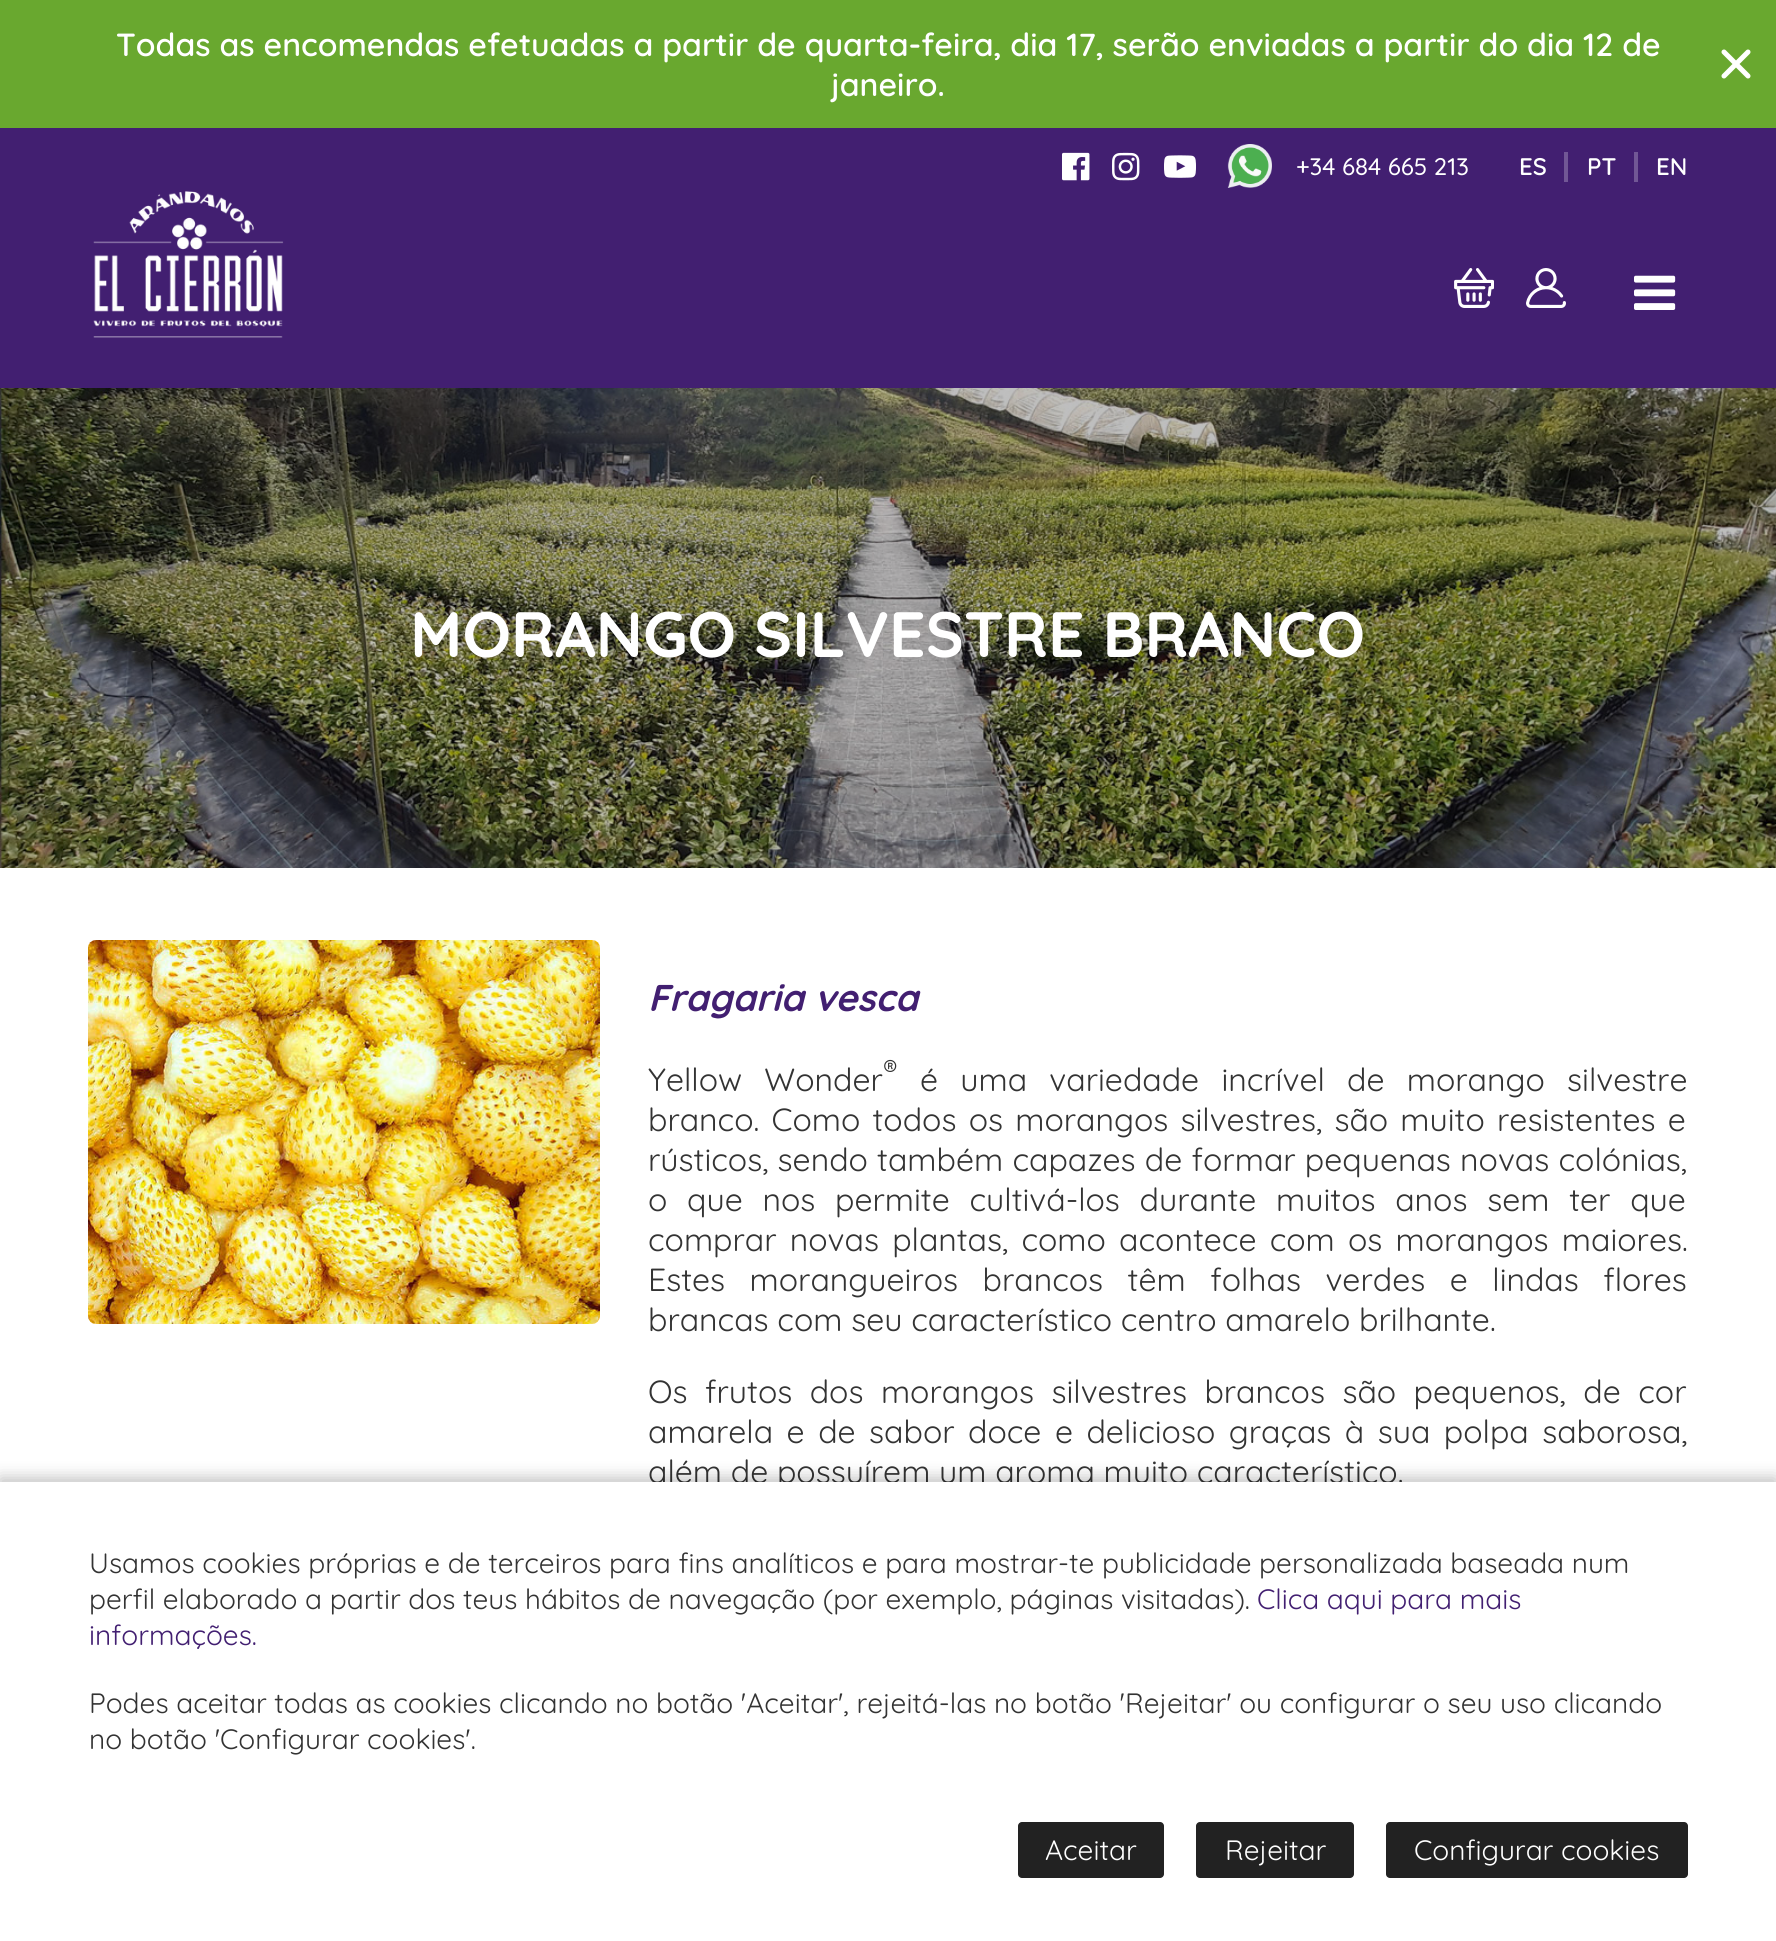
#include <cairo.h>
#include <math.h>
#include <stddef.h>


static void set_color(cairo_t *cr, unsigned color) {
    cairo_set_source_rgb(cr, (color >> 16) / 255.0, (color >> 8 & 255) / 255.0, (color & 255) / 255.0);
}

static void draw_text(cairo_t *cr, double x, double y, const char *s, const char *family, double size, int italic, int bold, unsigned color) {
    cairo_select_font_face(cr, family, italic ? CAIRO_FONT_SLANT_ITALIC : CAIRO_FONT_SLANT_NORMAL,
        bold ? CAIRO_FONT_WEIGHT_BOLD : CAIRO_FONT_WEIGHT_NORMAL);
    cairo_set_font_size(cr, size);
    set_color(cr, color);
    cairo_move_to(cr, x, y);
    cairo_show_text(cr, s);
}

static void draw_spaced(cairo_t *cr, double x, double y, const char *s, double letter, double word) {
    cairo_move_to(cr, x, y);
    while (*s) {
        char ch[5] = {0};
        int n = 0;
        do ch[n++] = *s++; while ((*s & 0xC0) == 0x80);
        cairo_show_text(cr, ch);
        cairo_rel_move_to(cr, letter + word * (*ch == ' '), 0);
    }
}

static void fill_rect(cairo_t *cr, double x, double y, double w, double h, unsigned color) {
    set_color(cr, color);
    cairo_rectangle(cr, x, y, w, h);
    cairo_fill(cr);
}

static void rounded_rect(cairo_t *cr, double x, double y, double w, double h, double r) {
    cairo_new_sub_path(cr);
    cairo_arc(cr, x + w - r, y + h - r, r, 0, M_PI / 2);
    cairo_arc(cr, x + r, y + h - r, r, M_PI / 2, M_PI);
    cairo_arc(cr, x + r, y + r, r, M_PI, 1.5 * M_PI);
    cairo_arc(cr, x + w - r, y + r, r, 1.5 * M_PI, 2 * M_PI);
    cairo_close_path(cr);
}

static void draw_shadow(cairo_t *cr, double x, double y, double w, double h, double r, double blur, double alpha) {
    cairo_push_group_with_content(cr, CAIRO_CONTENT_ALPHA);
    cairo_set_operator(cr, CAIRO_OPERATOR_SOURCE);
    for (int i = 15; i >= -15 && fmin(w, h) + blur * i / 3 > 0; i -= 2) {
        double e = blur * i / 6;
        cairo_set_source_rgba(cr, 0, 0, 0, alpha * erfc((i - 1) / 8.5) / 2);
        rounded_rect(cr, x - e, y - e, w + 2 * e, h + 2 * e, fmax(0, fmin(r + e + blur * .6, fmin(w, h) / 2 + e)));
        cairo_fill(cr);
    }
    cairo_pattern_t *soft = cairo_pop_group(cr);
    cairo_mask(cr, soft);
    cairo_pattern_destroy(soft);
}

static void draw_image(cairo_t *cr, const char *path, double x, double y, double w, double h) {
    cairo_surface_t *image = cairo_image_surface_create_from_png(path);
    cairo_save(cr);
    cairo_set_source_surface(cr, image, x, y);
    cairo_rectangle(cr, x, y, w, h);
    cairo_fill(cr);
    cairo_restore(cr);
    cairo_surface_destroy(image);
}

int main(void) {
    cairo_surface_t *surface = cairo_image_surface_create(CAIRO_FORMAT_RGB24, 1776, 1941);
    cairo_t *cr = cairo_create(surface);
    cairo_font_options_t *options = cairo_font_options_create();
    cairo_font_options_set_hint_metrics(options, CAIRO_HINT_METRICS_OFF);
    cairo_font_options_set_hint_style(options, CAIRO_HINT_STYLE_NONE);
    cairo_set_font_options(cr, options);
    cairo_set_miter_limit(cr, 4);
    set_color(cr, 0xFFFFFF);
    cairo_paint(cr);
    fill_rect(cr, 0, 0, 1776, 128, 0x69A82F);
    draw_text(cr, 116, 56, "Todas as encomendas efetuadas a partir de quarta-feira, dia 17, serão enviadas a partir do dia 12 de", "Quicksand SemiBold", 32, 0, 0, 0xFFFFFF);
    draw_text(cr, 831, 96, "janeiro.", "Quicksand SemiBold", 32, 0, 0, 0xFFFFFF);
    cairo_new_path(cr);
    cairo_move_to(cr, 1748, 52);
    cairo_line_to(cr, 1724, 76);
    cairo_move_to(cr, 1724, 52);
    cairo_line_to(cr, 1748, 76);
    cairo_set_line_width(cr, 5);
    cairo_set_line_cap(cr, CAIRO_LINE_CAP_ROUND);
    cairo_set_line_join(cr, CAIRO_LINE_JOIN_ROUND);
    cairo_stroke(cr);
    fill_rect(cr, 0, 128, 1776, 260, 0x421F71);
    draw_image(cr, "assets/img1.png", 1062, 152, 28, 29);
    draw_image(cr, "assets/img2.png", 1112, 152, 28, 29);
    draw_image(cr, "assets/img3.png", 1164, 155, 32, 23);
    draw_image(cr, "assets/img4.png", 1227, 144, 45, 44);
    draw_text(cr, 1296, 175, "+34 684 665 213", "Quicksand Medium", 24, 0, 0, 0xFFFFFF);
    draw_text(cr, 1519, 175, "ES", "Quicksand SemiBold", 24, 0, 0, 0xFFFFFF);
    fill_rect(cr, 1564, 152, 4, 30, 0x715795);
    draw_text(cr, 1587, 175, "PT", "Quicksand SemiBold", 24, 0, 0, 0xFFFFFF);
    fill_rect(cr, 1634, 152, 4, 30, 0x715795);
    draw_text(cr, 1656, 175, "EN", "Quicksand SemiBold", 24, 0, 0, 0xFFFFFF);
    draw_image(cr, "assets/img5.png", 93, 191, 191, 147);
    draw_image(cr, "assets/img6.png", 1454, 268, 40, 40);
    draw_image(cr, "assets/img7.png", 1526, 268, 40, 40);
    draw_image(cr, "assets/img8.png", 1634, 275, 42, 35);
    draw_image(cr, "assets/img9.png", 0, 388, 1776, 480);
    draw_text(cr, 410, 657, "MORANGO SILVESTRE BRANCO", "Quicksand", 64, 0, 1, 0xFFFFFF);
    draw_image(cr, "assets/img10.png", 88, 940, 512, 384);
    draw_text(cr, 648, 1011, "Fragaria vesca", "Quicksand", 37.25, 1, 1, 0x421F71);
    cairo_select_font_face(cr, "Quicksand", CAIRO_FONT_SLANT_NORMAL, CAIRO_FONT_WEIGHT_NORMAL);
    cairo_set_font_size(cr, 32);
    set_color(cr, 0x333333);
    draw_spaced(cr, 648, 1091, "Yellow Wonder", 0, 13.5);
    draw_text(cr, 883, 1079, "®", "Quicksand", 27, 0, 0, 0x333333);
    cairo_set_font_size(cr, 32);
    draw_spaced(cr, 920, 1091, "é uma variedade incrível de morango silvestre", 0, 13.5);
    draw_spaced(cr, 648, 1131, "branco. Como todos os morangos silvestres, são muito resistentes e", 0, 3.5);
    draw_spaced(cr, 648, 1171, "rústicos, sendo também capazes de formar pequenas novas colónias,", 0, 0.5);
    draw_spaced(cr, 648, 1211, "o que nos permite cultivá-los durante muitos anos sem ter que", 0, 11);
    draw_spaced(cr, 648, 1251, "comprar novas plantas, como acontece com os morangos maiores.", 0, 4.5);
    draw_spaced(cr, 648, 1291, "Estes morangueiros brancos têm folhas verdes e lindas flores", 0, 15.75);
    draw_text(cr, 648, 1331, "brancas com seu característico centro amarelo brilhante.", "Quicksand", 32, 0, 0, 0x333333);
    draw_spaced(cr, 648, 1403, "Os frutos dos morangos silvestres brancos são pequenos, de cor", 0, 8.75);
    draw_spaced(cr, 648, 1443, "amarela e de sabor doce e delicioso graças à sua polpa saborosa,", 0, 4.75);
    draw_text(cr, 648, 1483, "além de possuírem um aroma muito característico.", "Quicksand", 32, 0, 0, 0x333333);
    set_color(cr, 0x000000);
    draw_shadow(cr, 0, 1478, 1776, 460, 0, 8, 0.25);
    fill_rect(cr, 0, 1482, 1776, 459, 0xFFFFFF);
    draw_text(cr, 89, 1573, "Usamos cookies próprias e de terceiros para fins analíticos e para mostrar-te publicidade personalizada baseada num", "Quicksand", 28, 0, 0, 0x333333);
    draw_text(cr, 89, 1609, "perfil elaborado a partir dos teus hábitos de navegação (por exemplo, páginas visitadas).", "Quicksand", 28, 0, 0, 0x333333);
    draw_text(cr, 1257, 1609, "Clica aqui para mais", "Quicksand", 28, 0, 0, 0x421F71);
    draw_text(cr, 89, 1645, "informações.", "Quicksand", 28, 0, 0, 0x421F71);
    draw_text(cr, 89, 1713, "Podes aceitar todas as cookies clicando no botão 'Aceitar', rejeitá-las no botão 'Rejeitar' ou configurar o seu uso clicando", "Quicksand", 28, 0, 0, 0x333333);
    draw_text(cr, 89, 1749, "no botão 'Configurar cookies'.", "Quicksand", 28, 0, 0, 0x333333);
    set_color(cr, 0x222222);
    rounded_rect(cr, 1018, 1822, 146, 56, 4);
    cairo_fill(cr);
    draw_text(cr, 1045, 1860, "Aceitar", "Quicksand", 28, 0, 0, 0xFFFFFF);
    set_color(cr, 0x222222);
    rounded_rect(cr, 1196, 1822, 158, 56, 4);
    cairo_fill(cr);
    draw_text(cr, 1225, 1860, "Rejeitar", "Quicksand", 28, 0, 0, 0xFFFFFF);
    set_color(cr, 0x222222);
    rounded_rect(cr, 1386, 1822, 302, 56, 4);
    cairo_fill(cr);
    draw_text(cr, 1414, 1860, "Configurar cookies", "Quicksand", 28, 0, 0, 0xFFFFFF);
    cairo_surface_write_to_png(surface, "output.png");
    cairo_font_options_destroy(options);
    cairo_destroy(cr);
    cairo_surface_destroy(surface);
    return 0;
}
